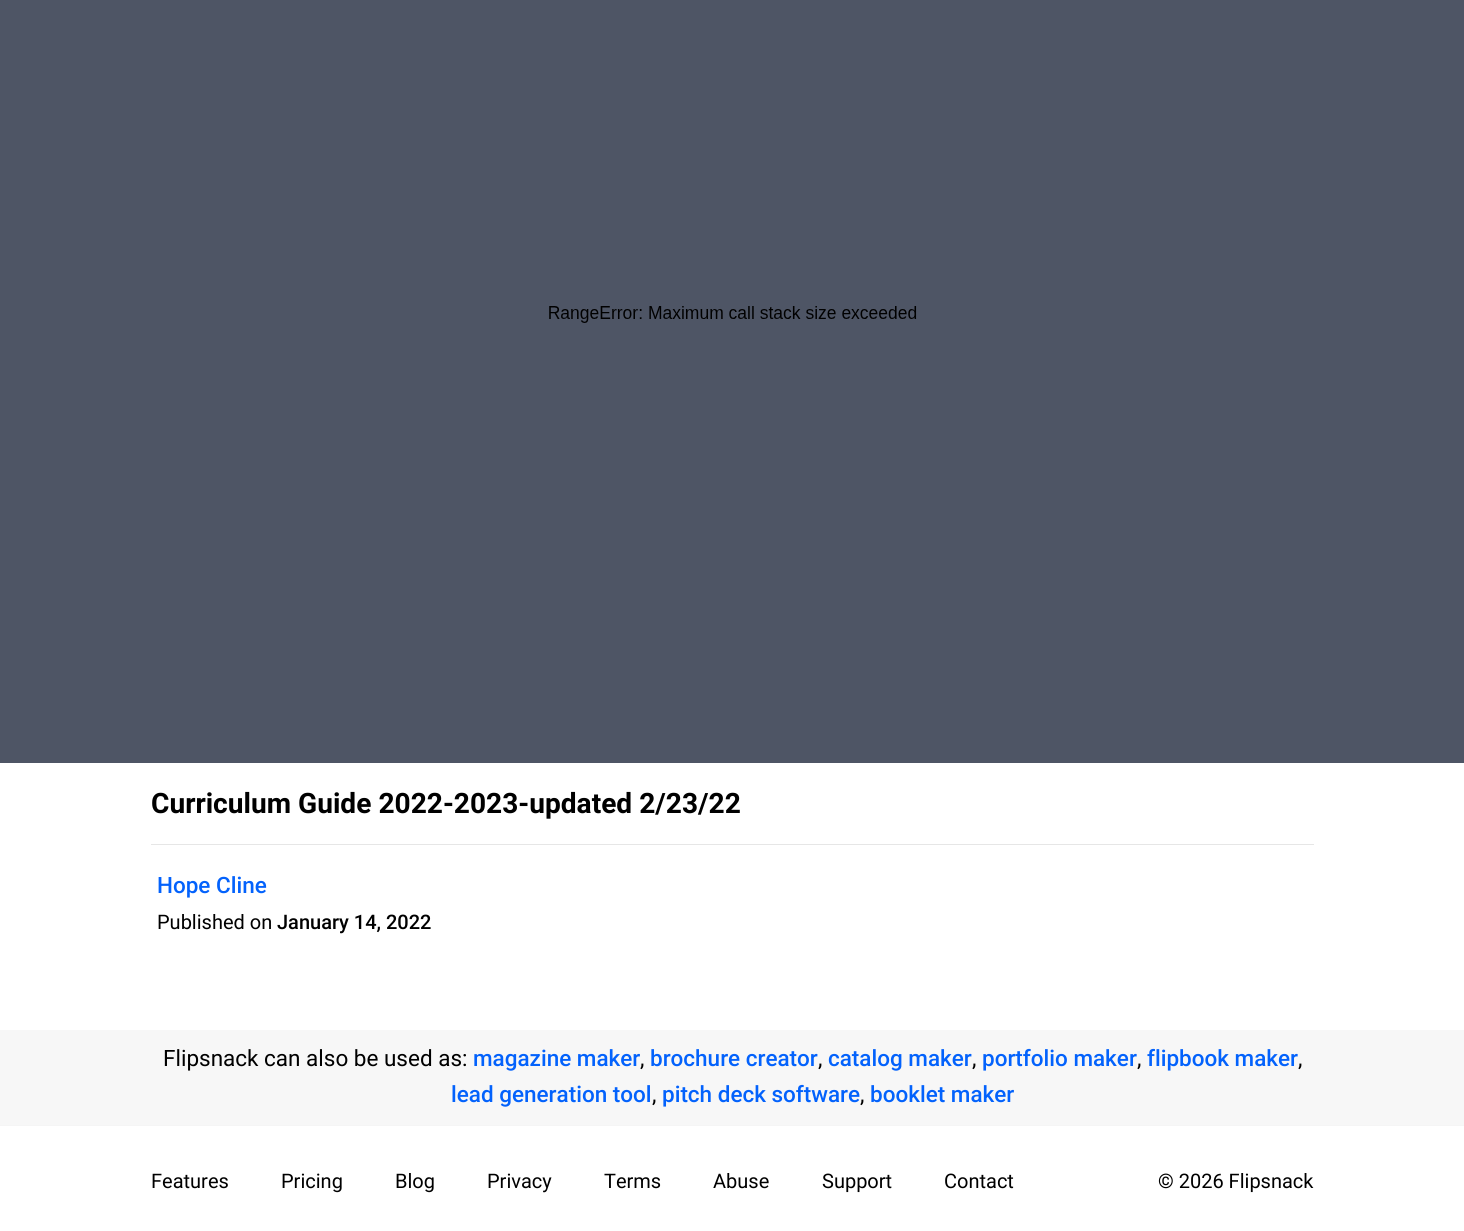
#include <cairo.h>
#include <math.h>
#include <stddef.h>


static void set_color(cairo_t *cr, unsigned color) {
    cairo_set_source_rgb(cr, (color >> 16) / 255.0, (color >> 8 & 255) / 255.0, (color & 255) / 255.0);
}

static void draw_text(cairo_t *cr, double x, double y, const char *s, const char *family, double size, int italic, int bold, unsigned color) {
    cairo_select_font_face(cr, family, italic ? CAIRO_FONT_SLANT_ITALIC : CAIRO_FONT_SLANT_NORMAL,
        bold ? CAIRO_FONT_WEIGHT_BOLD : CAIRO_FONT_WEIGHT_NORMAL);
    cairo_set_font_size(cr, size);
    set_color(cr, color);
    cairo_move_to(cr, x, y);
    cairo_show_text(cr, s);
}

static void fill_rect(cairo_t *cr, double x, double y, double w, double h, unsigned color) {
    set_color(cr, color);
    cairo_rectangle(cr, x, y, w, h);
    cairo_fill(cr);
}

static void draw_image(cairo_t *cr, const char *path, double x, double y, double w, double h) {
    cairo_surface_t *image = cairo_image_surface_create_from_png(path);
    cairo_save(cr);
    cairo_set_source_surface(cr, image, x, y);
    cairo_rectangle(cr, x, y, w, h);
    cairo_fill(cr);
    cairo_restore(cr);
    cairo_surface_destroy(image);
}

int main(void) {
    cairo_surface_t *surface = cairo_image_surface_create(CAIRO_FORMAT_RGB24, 1464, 1231);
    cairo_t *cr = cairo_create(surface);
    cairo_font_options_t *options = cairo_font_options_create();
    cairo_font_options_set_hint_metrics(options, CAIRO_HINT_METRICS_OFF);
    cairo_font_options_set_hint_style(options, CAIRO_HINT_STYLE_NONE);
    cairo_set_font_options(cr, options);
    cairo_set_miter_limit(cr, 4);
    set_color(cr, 0xFFFFFF);
    cairo_paint(cr);
    fill_rect(cr, 0, 0, 1464, 763, 0x4E5565);
    draw_image(cr, "assets/img1.png", 549, 306, 368, 17);
    draw_text(cr, 151, 813, "Curriculum Guide 2022-2023-updated 2/23/22", "Roboto", 28.1, 0, 1, 0x000000);
    fill_rect(cr, 151, 844, 1163, 1, 0xE6E6E6);
    draw_text(cr, 157, 893, "Hope Cline", "Roboto Medium", 22.5, 0, 0, 0x0362FC);
    draw_text(cr, 157, 929, "Published on", "Roboto", 20, 0, 0, 0x000000);
    draw_text(cr, 277, 929, "January 14, 2022", "Roboto Medium", 20, 0, 0, 0x000000);
    fill_rect(cr, 0, 1030, 1464, 95, 0xF7F7F7);
    draw_text(cr, 163, 1066, "Flipsnack can also be used as:", "Roboto", 22.5, 0, 0, 0x000000);
    draw_text(cr, 473, 1066, "magazine maker", "Roboto Medium", 22.5, 0, 0, 0x0362FC);
    draw_text(cr, 640, 1066, ",", "Roboto", 22.5, 0, 0, 0x000000);
    draw_text(cr, 650, 1066, "brochure creator", "Roboto Medium", 22.5, 0, 0, 0x0362FC);
    draw_text(cr, 818, 1066, ",", "Roboto", 22.5, 0, 0, 0x000000);
    draw_text(cr, 828, 1066, "catalog maker", "Roboto Medium", 22.5, 0, 0, 0x0362FC);
    draw_text(cr, 972, 1066, ",", "Roboto", 22.5, 0, 0, 0x000000);
    draw_text(cr, 982, 1066, "portfolio maker", "Roboto Medium", 22.5, 0, 0, 0x0362FC);
    draw_text(cr, 1137, 1066, ",", "Roboto", 22.5, 0, 0, 0x000000);
    draw_text(cr, 1147, 1066, "flipbook maker", "Roboto Medium", 22.5, 0, 0, 0x0362FC);
    draw_text(cr, 1298, 1066, ",", "Roboto", 22.5, 0, 0, 0x000000);
    draw_text(cr, 451, 1102, "lead generation tool", "Roboto Medium", 22.5, 0, 0, 0x0362FC);
    draw_text(cr, 652, 1102, ",", "Roboto", 22.5, 0, 0, 0x000000);
    draw_text(cr, 662, 1102, "pitch deck software", "Roboto Medium", 22.5, 0, 0, 0x0362FC);
    draw_text(cr, 860, 1102, ",", "Roboto", 22.5, 0, 0, 0x000000);
    draw_text(cr, 870, 1102, "booklet maker", "Roboto Medium", 22.5, 0, 0, 0x0362FC);
    fill_rect(cr, 0, 1125, 1464, 1, 0xF5F5F5);
    draw_text(cr, 151, 1188, "Features", "Roboto", 20, 0, 0, 0x000000);
    draw_text(cr, 281, 1188, "Pricing", "Roboto", 20, 0, 0, 0x000000);
    draw_text(cr, 395, 1188, "Blog", "Roboto", 20, 0, 0, 0x000000);
    draw_text(cr, 487, 1188, "Privacy", "Roboto", 20, 0, 0, 0x000000);
    draw_text(cr, 604, 1188, "Terms", "Roboto", 20, 0, 0, 0x000000);
    draw_text(cr, 713, 1188, "Abuse", "Roboto", 20, 0, 0, 0x000000);
    draw_text(cr, 822, 1188, "Support", "Roboto", 20, 0, 0, 0x000000);
    draw_text(cr, 944, 1188, "Contact", "Roboto", 20, 0, 0, 0x000000);
    draw_text(cr, 1158, 1188, "© 2026 Flipsnack", "Roboto", 20, 0, 0, 0x000000);
    cairo_surface_write_to_png(surface, "output.png");
    cairo_font_options_destroy(options);
    cairo_destroy(cr);
    cairo_surface_destroy(surface);
    return 0;
}
